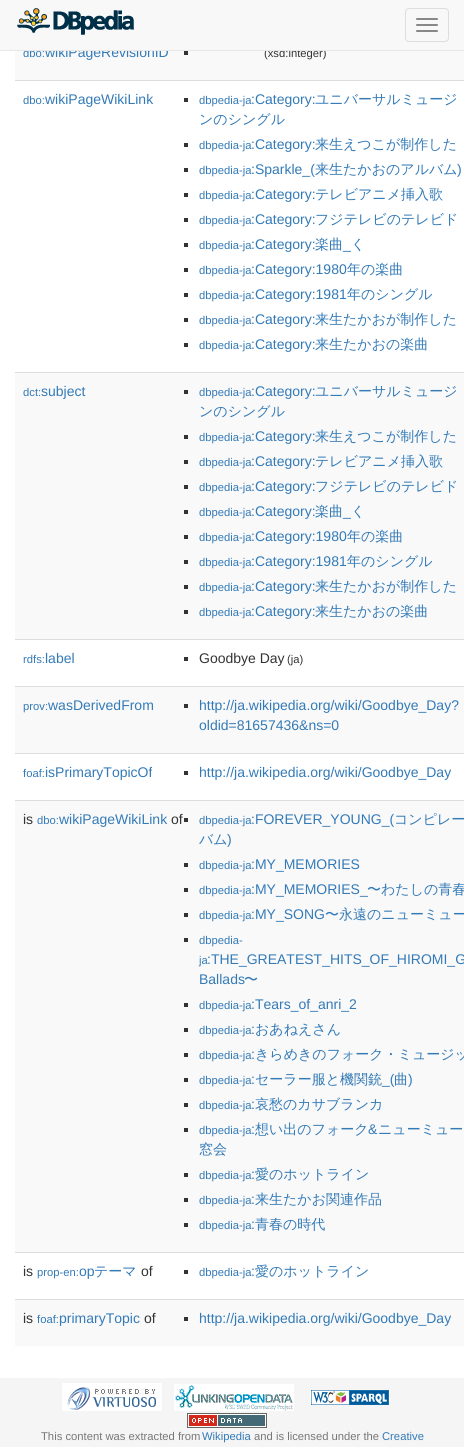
#include <cairo.h>
#include <math.h>
#include <stddef.h>


static void set_color(cairo_t *cr, unsigned color) {
    cairo_set_source_rgb(cr, (color >> 16) / 255.0, (color >> 8 & 255) / 255.0, (color & 255) / 255.0);
}

static void draw_text(cairo_t *cr, double x, double y, const char *s, const char *family, double size, int italic, int bold, unsigned color) {
    cairo_select_font_face(cr, family, italic ? CAIRO_FONT_SLANT_ITALIC : CAIRO_FONT_SLANT_NORMAL,
        bold ? CAIRO_FONT_WEIGHT_BOLD : CAIRO_FONT_WEIGHT_NORMAL);
    cairo_set_font_size(cr, size);
    set_color(cr, color);
    cairo_move_to(cr, x, y);
    cairo_show_text(cr, s);
}

static void fill_rect(cairo_t *cr, double x, double y, double w, double h, unsigned color) {
    set_color(cr, color);
    cairo_rectangle(cr, x, y, w, h);
    cairo_fill(cr);
}

static void rounded_rect(cairo_t *cr, double x, double y, double w, double h, double r) {
    cairo_new_sub_path(cr);
    cairo_arc(cr, x + w - r, y + h - r, r, 0, M_PI / 2);
    cairo_arc(cr, x + r, y + h - r, r, M_PI / 2, M_PI);
    cairo_arc(cr, x + r, y + r, r, M_PI, 1.5 * M_PI);
    cairo_arc(cr, x + w - r, y + r, r, 1.5 * M_PI, 2 * M_PI);
    cairo_close_path(cr);
}

static void draw_image(cairo_t *cr, const char *path, double x, double y, double w, double h) {
    cairo_surface_t *image = cairo_image_surface_create_from_png(path);
    cairo_save(cr);
    cairo_set_source_surface(cr, image, x, y);
    cairo_rectangle(cr, x, y, w, h);
    cairo_fill(cr);
    cairo_restore(cr);
    cairo_surface_destroy(image);
}

int main(void) {
    cairo_surface_t *surface = cairo_image_surface_create(CAIRO_FORMAT_RGB24, 464, 1447);
    cairo_t *cr = cairo_create(surface);
    cairo_font_options_t *options = cairo_font_options_create();
    cairo_font_options_set_hint_metrics(options, CAIRO_HINT_METRICS_OFF);
    cairo_font_options_set_hint_style(options, CAIRO_HINT_STYLE_NONE);
    cairo_set_font_options(cr, options);
    cairo_set_miter_limit(cr, 4);
    set_color(cr, 0xFFFFFF);
    cairo_paint(cr);
    fill_rect(cr, 15, 51, 449, 29, 0xF9F9F9);
    draw_text(cr, 23, 57, "dbo:", "Liberation Sans", 11.25, 0, 0, 0x337AB7);
    draw_text(cr, 45, 57, "wikiPageRevisionID", "Liberation Sans", 14, 0, 0, 0x337AB7);
    draw_text(cr, 264, 57, "(xsd:integer)", "Liberation Sans", 11.25, 0, 0, 0x333333);
    fill_rect(cr, 0, 0, 464, 50, 0xF8F8F8);
    fill_rect(cr, 0, 50, 464, 1, 0xE7E7E7);
    draw_image(cr, "assets/img1.png", 17, 8, 117, 27);
    rounded_rect(cr, 405.5, 8.5, 43, 33, 3.5);
    set_color(cr, 0xDDDDDD);
    cairo_set_line_width(cr, 1);
    cairo_stroke(cr);
    set_color(cr, 0x888888);
    rounded_rect(cr, 416, 18, 22, 2, 1);
    cairo_fill(cr);
    rounded_rect(cr, 416, 24, 22, 2, 1);
    cairo_fill(cr);
    rounded_rect(cr, 416, 30, 22, 2, 1);
    cairo_fill(cr);
    fill_rect(cr, 184, 51, 4, 4, 0x333333);
    draw_text(cr, 23, 104, "dbo:", "Liberation Sans", 11.25, 0, 0, 0x337AB7);
    draw_text(cr, 45, 104, "wikiPageWikiLink", "Liberation Sans", 14, 0, 0, 0x337AB7);
    fill_rect(cr, 15, 80, 449, 1, 0xDDDDDD);
    fill_rect(cr, 184, 98, 4, 4, 0x333333);
    draw_text(cr, 199, 104, "dbpedia-ja", "Liberation Sans", 11.25, 0, 0, 0x337AB7);
    draw_text(cr, 251, 104, ":Category:", "Liberation Sans", 14, 0, 0, 0x337AB7);
    draw_text(cr, 315, 104, "ユニバーサルミュージ", "WenQuanYi Zen Hei Medium", 14, 0, 0, 0x337AB7);
    draw_text(cr, 199, 124, "ンのシングル", "WenQuanYi Zen Hei Medium", 14, 0, 0, 0x337AB7);
    fill_rect(cr, 184, 143, 4, 4, 0x333333);
    draw_text(cr, 199, 149, "dbpedia-ja", "Liberation Sans", 11.25, 0, 0, 0x337AB7);
    draw_text(cr, 251, 149, ":Category:", "Liberation Sans", 14, 0, 0, 0x337AB7);
    draw_text(cr, 315, 149, "来生えつこが制作した", "WenQuanYi Zen Hei Medium", 14, 0, 0, 0x337AB7);
    fill_rect(cr, 184, 168, 4, 4, 0x333333);
    draw_text(cr, 199, 174, "dbpedia-ja", "Liberation Sans", 11.25, 0, 0, 0x337AB7);
    draw_text(cr, 251, 174, ":Sparkle_(", "Liberation Sans", 14, 0, 0, 0x337AB7);
    draw_text(cr, 315, 174, "来生たかおのアルバム", "WenQuanYi Zen Hei Medium", 14, 0, 0, 0x337AB7);
    draw_text(cr, 457, 174, ")", "Liberation Sans", 14, 0, 0, 0x337AB7);
    fill_rect(cr, 184, 193, 4, 4, 0x333333);
    draw_text(cr, 199, 199, "dbpedia-ja", "Liberation Sans", 11.25, 0, 0, 0x337AB7);
    draw_text(cr, 251, 199, ":Category:", "Liberation Sans", 14, 0, 0, 0x337AB7);
    draw_text(cr, 315, 199, "テレビアニメ挿入歌", "WenQuanYi Zen Hei Medium", 14, 0, 0, 0x337AB7);
    fill_rect(cr, 184, 218, 4, 4, 0x333333);
    draw_text(cr, 199, 224, "dbpedia-ja", "Liberation Sans", 11.25, 0, 0, 0x337AB7);
    draw_text(cr, 251, 224, ":Category:", "Liberation Sans", 14, 0, 0, 0x337AB7);
    draw_text(cr, 315, 224, "フジテレビのテレビド", "WenQuanYi Zen Hei Medium", 14, 0, 0, 0x337AB7);
    fill_rect(cr, 184, 243, 4, 4, 0x333333);
    draw_text(cr, 199, 249, "dbpedia-ja", "Liberation Sans", 11.25, 0, 0, 0x337AB7);
    draw_text(cr, 251, 249, ":Category:", "Liberation Sans", 14, 0, 0, 0x337AB7);
    draw_text(cr, 315, 249, "楽曲", "WenQuanYi Zen Hei Medium", 14, 0, 0, 0x337AB7);
    draw_text(cr, 351, 249, "く", "WenQuanYi Zen Hei Medium", 14, 0, 0, 0x337AB7);
    draw_text(cr, 343, 249, "_", "Liberation Sans", 14, 0, 0, 0x337AB7);
    fill_rect(cr, 184, 268, 4, 4, 0x333333);
    draw_text(cr, 199, 274, "dbpedia-ja", "Liberation Sans", 11.25, 0, 0, 0x337AB7);
    draw_text(cr, 251, 274, ":Category:1980", "Liberation Sans", 14, 0, 0, 0x337AB7);
    draw_text(cr, 347, 274, "年の楽曲", "WenQuanYi Zen Hei Medium", 14, 0, 0, 0x337AB7);
    fill_rect(cr, 184, 293, 4, 4, 0x333333);
    draw_text(cr, 199, 299, "dbpedia-ja", "Liberation Sans", 11.25, 0, 0, 0x337AB7);
    draw_text(cr, 251, 299, ":Category:1981", "Liberation Sans", 14, 0, 0, 0x337AB7);
    draw_text(cr, 347, 299, "年のシングル", "WenQuanYi Zen Hei Medium", 14, 0, 0, 0x337AB7);
    fill_rect(cr, 184, 318, 4, 4, 0x333333);
    draw_text(cr, 199, 324, "dbpedia-ja", "Liberation Sans", 11.25, 0, 0, 0x337AB7);
    draw_text(cr, 251, 324, ":Category:", "Liberation Sans", 14, 0, 0, 0x337AB7);
    draw_text(cr, 315, 324, "来生たかおが制作した", "WenQuanYi Zen Hei Medium", 14, 0, 0, 0x337AB7);
    fill_rect(cr, 184, 343, 4, 4, 0x333333);
    draw_text(cr, 199, 349, "dbpedia-ja", "Liberation Sans", 11.25, 0, 0, 0x337AB7);
    draw_text(cr, 251, 349, ":Category:", "Liberation Sans", 14, 0, 0, 0x337AB7);
    draw_text(cr, 315, 349, "来生たかおの楽曲", "WenQuanYi Zen Hei Medium", 14, 0, 0, 0x337AB7);
    fill_rect(cr, 15, 373, 449, 266, 0xF9F9F9);
    draw_text(cr, 23, 396, "dct:", "Liberation Sans", 11.25, 0, 0, 0x337AB7);
    draw_text(cr, 41, 396, "subject", "Liberation Sans", 14, 0, 0, 0x337AB7);
    fill_rect(cr, 15, 372, 449, 1, 0xDDDDDD);
    fill_rect(cr, 184, 390, 4, 4, 0x333333);
    draw_text(cr, 199, 396, "dbpedia-ja", "Liberation Sans", 11.25, 0, 0, 0x337AB7);
    draw_text(cr, 251, 396, ":Category:", "Liberation Sans", 14, 0, 0, 0x337AB7);
    draw_text(cr, 315, 396, "ユニバーサルミュージ", "WenQuanYi Zen Hei Medium", 14, 0, 0, 0x337AB7);
    draw_text(cr, 199, 416, "ンのシングル", "WenQuanYi Zen Hei Medium", 14, 0, 0, 0x337AB7);
    fill_rect(cr, 184, 435, 4, 4, 0x333333);
    draw_text(cr, 199, 441, "dbpedia-ja", "Liberation Sans", 11.25, 0, 0, 0x337AB7);
    draw_text(cr, 251, 441, ":Category:", "Liberation Sans", 14, 0, 0, 0x337AB7);
    draw_text(cr, 315, 441, "来生えつこが制作した", "WenQuanYi Zen Hei Medium", 14, 0, 0, 0x337AB7);
    fill_rect(cr, 184, 460, 4, 4, 0x333333);
    draw_text(cr, 199, 466, "dbpedia-ja", "Liberation Sans", 11.25, 0, 0, 0x337AB7);
    draw_text(cr, 251, 466, ":Category:", "Liberation Sans", 14, 0, 0, 0x337AB7);
    draw_text(cr, 315, 466, "テレビアニメ挿入歌", "WenQuanYi Zen Hei Medium", 14, 0, 0, 0x337AB7);
    fill_rect(cr, 184, 485, 4, 4, 0x333333);
    draw_text(cr, 199, 491, "dbpedia-ja", "Liberation Sans", 11.25, 0, 0, 0x337AB7);
    draw_text(cr, 251, 491, ":Category:", "Liberation Sans", 14, 0, 0, 0x337AB7);
    draw_text(cr, 315, 491, "フジテレビのテレビド", "WenQuanYi Zen Hei Medium", 14, 0, 0, 0x337AB7);
    fill_rect(cr, 184, 510, 4, 4, 0x333333);
    draw_text(cr, 199, 516, "dbpedia-ja", "Liberation Sans", 11.25, 0, 0, 0x337AB7);
    draw_text(cr, 251, 516, ":Category:", "Liberation Sans", 14, 0, 0, 0x337AB7);
    draw_text(cr, 315, 516, "楽曲", "WenQuanYi Zen Hei Medium", 14, 0, 0, 0x337AB7);
    draw_text(cr, 351, 516, "く", "WenQuanYi Zen Hei Medium", 14, 0, 0, 0x337AB7);
    draw_text(cr, 343, 516, "_", "Liberation Sans", 14, 0, 0, 0x337AB7);
    fill_rect(cr, 184, 535, 4, 4, 0x333333);
    draw_text(cr, 199, 541, "dbpedia-ja", "Liberation Sans", 11.25, 0, 0, 0x337AB7);
    draw_text(cr, 251, 541, ":Category:1980", "Liberation Sans", 14, 0, 0, 0x337AB7);
    draw_text(cr, 347, 541, "年の楽曲", "WenQuanYi Zen Hei Medium", 14, 0, 0, 0x337AB7);
    fill_rect(cr, 184, 560, 4, 4, 0x333333);
    draw_text(cr, 199, 566, "dbpedia-ja", "Liberation Sans", 11.25, 0, 0, 0x337AB7);
    draw_text(cr, 251, 566, ":Category:1981", "Liberation Sans", 14, 0, 0, 0x337AB7);
    draw_text(cr, 347, 566, "年のシングル", "WenQuanYi Zen Hei Medium", 14, 0, 0, 0x337AB7);
    fill_rect(cr, 184, 585, 4, 4, 0x333333);
    draw_text(cr, 199, 591, "dbpedia-ja", "Liberation Sans", 11.25, 0, 0, 0x337AB7);
    draw_text(cr, 251, 591, ":Category:", "Liberation Sans", 14, 0, 0, 0x337AB7);
    draw_text(cr, 315, 591, "来生たかおが制作した", "WenQuanYi Zen Hei Medium", 14, 0, 0, 0x337AB7);
    fill_rect(cr, 184, 610, 4, 4, 0x333333);
    draw_text(cr, 199, 616, "dbpedia-ja", "Liberation Sans", 11.25, 0, 0, 0x337AB7);
    draw_text(cr, 251, 616, ":Category:", "Liberation Sans", 14, 0, 0, 0x337AB7);
    draw_text(cr, 315, 616, "来生たかおの楽曲", "WenQuanYi Zen Hei Medium", 14, 0, 0, 0x337AB7);
    draw_text(cr, 23, 663, "rdfs:", "Liberation Sans", 11.25, 0, 0, 0x337AB7);
    draw_text(cr, 45, 663, "label", "Liberation Sans", 14, 0, 0, 0x337AB7);
    fill_rect(cr, 15, 639, 449, 1, 0xDDDDDD);
    fill_rect(cr, 184, 657, 4, 4, 0x333333);
    draw_text(cr, 199, 663, "Goodbye Day", "Liberation Sans", 14, 0, 0, 0x333333);
    draw_text(cr, 287, 663, "(ja)", "Liberation Sans", 11.25, 0, 0, 0x333333);
    fill_rect(cr, 15, 687, 449, 66, 0xF9F9F9);
    draw_text(cr, 23, 710, "prov:", "Liberation Sans", 11.25, 0, 0, 0x337AB7);
    draw_text(cr, 48, 710, "wasDerivedFrom", "Liberation Sans", 14, 0, 0, 0x337AB7);
    fill_rect(cr, 15, 686, 449, 1, 0xDDDDDD);
    fill_rect(cr, 184, 704, 4, 4, 0x333333);
    draw_text(cr, 199, 710, "http://ja.wikipedia.org/wiki/Goodbye_Day?", "Liberation Sans", 14, 0, 0, 0x337AB7);
    draw_text(cr, 199, 730, "oldid=81657436&ns=0", "Liberation Sans", 14, 0, 0, 0x337AB7);
    draw_text(cr, 23, 777, "foaf:", "Liberation Sans", 11.25, 0, 0, 0x337AB7);
    draw_text(cr, 45, 777, "isPrimaryTopicOf", "Liberation Sans", 14, 0, 0, 0x337AB7);
    fill_rect(cr, 15, 753, 449, 1, 0xDDDDDD);
    fill_rect(cr, 184, 771, 4, 4, 0x333333);
    draw_text(cr, 199, 777, "http://ja.wikipedia.org/wiki/Goodbye_Day", "Liberation Sans", 14, 0, 0, 0x337AB7);
    fill_rect(cr, 15, 801, 449, 451, 0xF9F9F9);
    draw_text(cr, 23, 824, "is", "Liberation Sans", 14, 0, 0, 0x333333);
    draw_text(cr, 37, 824, "dbo:", "Liberation Sans", 11.25, 0, 0, 0x337AB7);
    draw_text(cr, 59, 824, "wikiPageWikiLink", "Liberation Sans", 14, 0, 0, 0x337AB7);
    draw_text(cr, 171, 824, "of", "Liberation Sans", 14, 0, 0, 0x333333);
    fill_rect(cr, 15, 800, 449, 1, 0xDDDDDD);
    fill_rect(cr, 184, 818, 4, 4, 0x333333);
    draw_text(cr, 199, 824, "dbpedia-ja", "Liberation Sans", 11.25, 0, 0, 0x337AB7);
    draw_text(cr, 251, 824, ":FOREVER_YOUNG_(", "Liberation Sans", 14, 0, 0, 0x337AB7);
    draw_text(cr, 394, 824, "コンピレー", "WenQuanYi Zen Hei Medium", 14, 0, 0, 0x337AB7);
    draw_text(cr, 199, 844, "バム", "WenQuanYi Zen Hei Medium", 14, 0, 0, 0x337AB7);
    draw_text(cr, 227, 844, ")", "Liberation Sans", 14, 0, 0, 0x337AB7);
    fill_rect(cr, 184, 863, 4, 4, 0x333333);
    draw_text(cr, 199, 869, "dbpedia-ja", "Liberation Sans", 11.25, 0, 0, 0x337AB7);
    draw_text(cr, 251, 869, ":MY_MEMORIES", "Liberation Sans", 14, 0, 0, 0x337AB7);
    fill_rect(cr, 184, 888, 4, 4, 0x333333);
    draw_text(cr, 199, 894, "dbpedia-ja", "Liberation Sans", 11.25, 0, 0, 0x337AB7);
    draw_text(cr, 251, 894, ":MY_MEMORIES_", "Liberation Sans", 14, 0, 0, 0x337AB7);
    draw_text(cr, 367, 894, "〜わたしの青春", "WenQuanYi Zen Hei Medium", 14, 0, 0, 0x337AB7);
    fill_rect(cr, 184, 913, 4, 4, 0x333333);
    draw_text(cr, 199, 919, "dbpedia-ja", "Liberation Sans", 11.25, 0, 0, 0x337AB7);
    draw_text(cr, 251, 919, ":MY_SONG", "Liberation Sans", 14, 0, 0, 0x337AB7);
    draw_text(cr, 325, 919, "〜永遠のニューミュー", "WenQuanYi Zen Hei Medium", 14, 0, 0, 0x337AB7);
    fill_rect(cr, 184, 938, 4, 4, 0x333333);
    draw_text(cr, 199, 944, "dbpedia-", "Liberation Sans", 11.25, 0, 0, 0x337AB7);
    draw_text(cr, 199, 964, "ja", "Liberation Sans", 11.25, 0, 0, 0x337AB7);
    draw_text(cr, 207, 964, ":THE_GREATEST_HITS_OF_HIROMI_G", "Liberation Sans", 14, 0, 0, 0x337AB7);
    draw_text(cr, 199, 984, "Ballads", "Liberation Sans", 14, 0, 0, 0x337AB7);
    draw_text(cr, 244, 984, "〜", "WenQuanYi Zen Hei Medium", 14, 0, 0, 0x337AB7);
    fill_rect(cr, 184, 1003, 4, 4, 0x333333);
    draw_text(cr, 199, 1009, "dbpedia-ja", "Liberation Sans", 11.25, 0, 0, 0x337AB7);
    draw_text(cr, 251, 1009, ":Tears_of_anri_2", "Liberation Sans", 14, 0, 0, 0x337AB7);
    fill_rect(cr, 184, 1028, 4, 4, 0x333333);
    draw_text(cr, 199, 1034, "dbpedia-ja", "Liberation Sans", 11.25, 0, 0, 0x337AB7);
    draw_text(cr, 251, 1034, ":", "Liberation Sans", 14, 0, 0, 0x337AB7);
    draw_text(cr, 255, 1034, "おあねえさん", "WenQuanYi Zen Hei Medium", 14, 0, 0, 0x337AB7);
    fill_rect(cr, 184, 1053, 4, 4, 0x333333);
    draw_text(cr, 199, 1059, "dbpedia-ja", "Liberation Sans", 11.25, 0, 0, 0x337AB7);
    draw_text(cr, 251, 1059, ":", "Liberation Sans", 14, 0, 0, 0x337AB7);
    draw_text(cr, 255, 1059, "きらめきのフォーク・ミュージッ", "WenQuanYi Zen Hei Medium", 14, 0, 0, 0x337AB7);
    fill_rect(cr, 184, 1078, 4, 4, 0x333333);
    draw_text(cr, 199, 1084, "dbpedia-ja", "Liberation Sans", 11.25, 0, 0, 0x337AB7);
    draw_text(cr, 251, 1084, ":", "Liberation Sans", 14, 0, 0, 0x337AB7);
    draw_text(cr, 255, 1084, "セーラー服と機関銃", "WenQuanYi Zen Hei Medium", 14, 0, 0, 0x337AB7);
    draw_text(cr, 382, 1084, "_(", "Liberation Sans", 14, 0, 0, 0x337AB7);
    draw_text(cr, 394, 1084, "曲", "WenQuanYi Zen Hei Medium", 14, 0, 0, 0x337AB7);
    draw_text(cr, 408, 1084, ")", "Liberation Sans", 14, 0, 0, 0x337AB7);
    fill_rect(cr, 184, 1103, 4, 4, 0x333333);
    draw_text(cr, 199, 1109, "dbpedia-ja", "Liberation Sans", 11.25, 0, 0, 0x337AB7);
    draw_text(cr, 251, 1109, ":", "Liberation Sans", 14, 0, 0, 0x337AB7);
    draw_text(cr, 255, 1109, "哀愁のカサブランカ", "WenQuanYi Zen Hei Medium", 14, 0, 0, 0x337AB7);
    fill_rect(cr, 184, 1128, 4, 4, 0x333333);
    draw_text(cr, 199, 1134, "dbpedia-ja", "Liberation Sans", 11.25, 0, 0, 0x337AB7);
    draw_text(cr, 251, 1134, ":", "Liberation Sans", 14, 0, 0, 0x337AB7);
    draw_text(cr, 255, 1134, "想い出のフォーク", "WenQuanYi Zen Hei Medium", 14, 0, 0, 0x337AB7);
    draw_text(cr, 368, 1134, "&", "Liberation Sans", 14, 0, 0, 0x337AB7);
    draw_text(cr, 378, 1134, "ニューミュー", "WenQuanYi Zen Hei Medium", 14, 0, 0, 0x337AB7);
    draw_text(cr, 199, 1154, "窓会", "WenQuanYi Zen Hei Medium", 14, 0, 0, 0x337AB7);
    fill_rect(cr, 184, 1173, 4, 4, 0x333333);
    draw_text(cr, 199, 1179, "dbpedia-ja", "Liberation Sans", 11.25, 0, 0, 0x337AB7);
    draw_text(cr, 251, 1179, ":", "Liberation Sans", 14, 0, 0, 0x337AB7);
    draw_text(cr, 255, 1179, "愛のホットライン", "WenQuanYi Zen Hei Medium", 14, 0, 0, 0x337AB7);
    fill_rect(cr, 184, 1198, 4, 4, 0x333333);
    draw_text(cr, 199, 1204, "dbpedia-ja", "Liberation Sans", 11.25, 0, 0, 0x337AB7);
    draw_text(cr, 251, 1204, ":", "Liberation Sans", 14, 0, 0, 0x337AB7);
    draw_text(cr, 255, 1204, "来生たかお関連作品", "WenQuanYi Zen Hei Medium", 14, 0, 0, 0x337AB7);
    fill_rect(cr, 184, 1223, 4, 4, 0x333333);
    draw_text(cr, 199, 1229, "dbpedia-ja", "Liberation Sans", 11.25, 0, 0, 0x337AB7);
    draw_text(cr, 251, 1229, ":", "Liberation Sans", 14, 0, 0, 0x337AB7);
    draw_text(cr, 255, 1229, "青春の時代", "WenQuanYi Zen Hei Medium", 14, 0, 0, 0x337AB7);
    draw_text(cr, 23, 1276, "is", "Liberation Sans", 14, 0, 0, 0x333333);
    draw_text(cr, 37, 1276, "prop-en:", "Liberation Sans", 11.25, 0, 0, 0x337AB7);
    draw_text(cr, 79, 1276, "op", "Liberation Sans", 14, 0, 0, 0x337AB7);
    draw_text(cr, 94, 1276, "テーマ", "WenQuanYi Zen Hei Medium", 14, 0, 0, 0x337AB7);
    draw_text(cr, 141, 1276, "of", "Liberation Sans", 14, 0, 0, 0x333333);
    fill_rect(cr, 15, 1252, 449, 1, 0xDDDDDD);
    fill_rect(cr, 184, 1270, 4, 4, 0x333333);
    draw_text(cr, 199, 1276, "dbpedia-ja", "Liberation Sans", 11.25, 0, 0, 0x337AB7);
    draw_text(cr, 251, 1276, ":", "Liberation Sans", 14, 0, 0, 0x337AB7);
    draw_text(cr, 255, 1276, "愛のホットライン", "WenQuanYi Zen Hei Medium", 14, 0, 0, 0x337AB7);
    fill_rect(cr, 15, 1300, 449, 46, 0xF9F9F9);
    draw_text(cr, 23, 1323, "is", "Liberation Sans", 14, 0, 0, 0x333333);
    draw_text(cr, 37, 1323, "foaf:", "Liberation Sans", 11.25, 0, 0, 0x337AB7);
    draw_text(cr, 59, 1323, "primaryTopic", "Liberation Sans", 14, 0, 0, 0x337AB7);
    draw_text(cr, 144, 1323, "of", "Liberation Sans", 14, 0, 0, 0x333333);
    fill_rect(cr, 15, 1299, 449, 1, 0xDDDDDD);
    fill_rect(cr, 184, 1317, 4, 4, 0x333333);
    draw_text(cr, 199, 1323, "http://ja.wikipedia.org/wiki/Goodbye_Day", "Liberation Sans", 14, 0, 0, 0x337AB7);
    fill_rect(cr, 0, 1378, 464, 69, 0xF5F5F5);
    draw_image(cr, "assets/img2.png", 62, 1383, 100, 28);
    draw_image(cr, "assets/img3.png", 174, 1384, 120, 27);
    draw_image(cr, "assets/img4.png", 310, 1390, 80, 15);
    draw_image(cr, "assets/img5.png", 187, 1413, 80, 15);
    draw_text(cr, 41, 1440, "This content was extracted from", "Liberation Sans", 11.25, 0, 0, 0x777777);
    draw_text(cr, 202, 1440, "Wikipedia", "Liberation Sans", 11.25, 0, 0, 0x337AB7);
    draw_text(cr, 254, 1440, "and is licensed under the", "Liberation Sans", 11.25, 0, 0, 0x777777);
    draw_text(cr, 382, 1440, "Creative", "Liberation Sans", 11.25, 0, 0, 0x337AB7);
    cairo_surface_write_to_png(surface, "output.png");
    cairo_font_options_destroy(options);
    cairo_destroy(cr);
    cairo_surface_destroy(surface);
    return 0;
}
